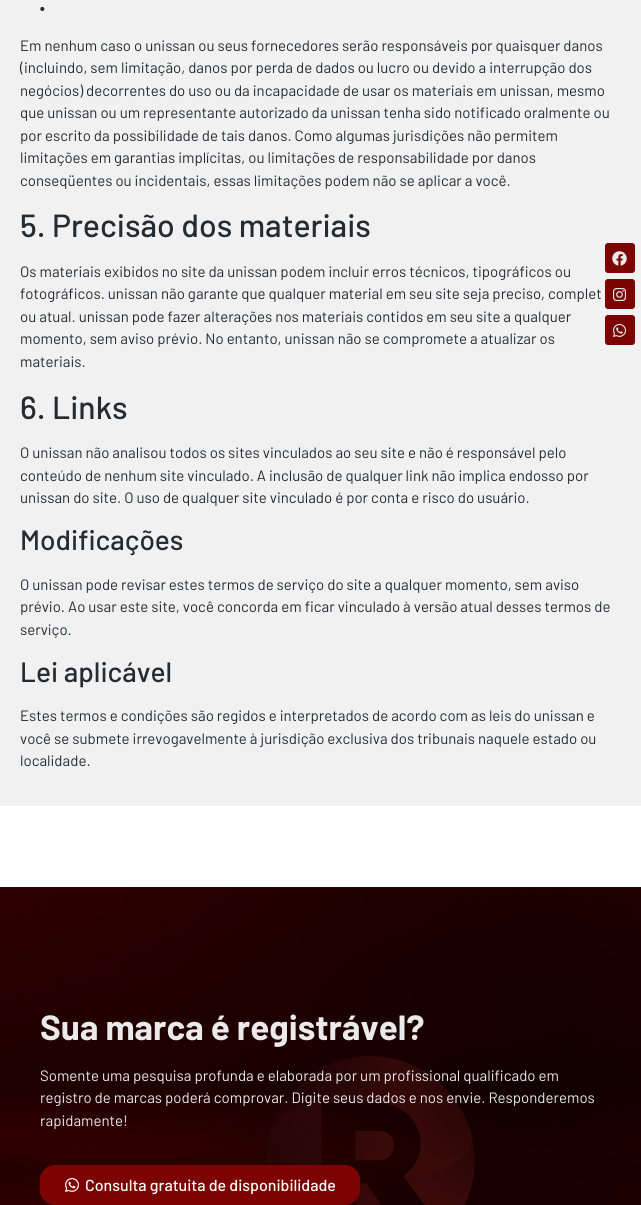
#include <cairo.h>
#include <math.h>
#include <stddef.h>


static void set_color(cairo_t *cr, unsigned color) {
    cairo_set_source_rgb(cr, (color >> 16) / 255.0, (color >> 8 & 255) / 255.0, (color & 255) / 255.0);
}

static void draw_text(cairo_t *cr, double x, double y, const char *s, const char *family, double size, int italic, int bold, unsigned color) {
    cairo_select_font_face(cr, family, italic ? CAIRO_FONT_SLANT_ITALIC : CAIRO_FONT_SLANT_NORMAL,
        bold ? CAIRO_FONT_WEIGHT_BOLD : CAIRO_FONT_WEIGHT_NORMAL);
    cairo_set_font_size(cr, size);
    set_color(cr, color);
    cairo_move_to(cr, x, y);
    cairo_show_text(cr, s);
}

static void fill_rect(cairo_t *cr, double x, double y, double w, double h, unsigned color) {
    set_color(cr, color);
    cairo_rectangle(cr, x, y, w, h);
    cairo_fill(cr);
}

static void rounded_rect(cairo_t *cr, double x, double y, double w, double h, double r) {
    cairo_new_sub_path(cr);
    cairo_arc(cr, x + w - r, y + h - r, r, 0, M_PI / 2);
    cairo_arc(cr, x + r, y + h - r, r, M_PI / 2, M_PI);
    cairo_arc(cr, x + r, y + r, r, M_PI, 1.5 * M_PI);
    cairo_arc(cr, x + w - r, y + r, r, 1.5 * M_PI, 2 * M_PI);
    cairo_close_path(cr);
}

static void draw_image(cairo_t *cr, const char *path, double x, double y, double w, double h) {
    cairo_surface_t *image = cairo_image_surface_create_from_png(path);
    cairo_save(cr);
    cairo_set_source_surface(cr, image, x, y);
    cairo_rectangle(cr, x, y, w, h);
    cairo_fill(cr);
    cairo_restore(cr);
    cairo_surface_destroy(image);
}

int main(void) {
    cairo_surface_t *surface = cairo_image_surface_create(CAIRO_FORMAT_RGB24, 641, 1205);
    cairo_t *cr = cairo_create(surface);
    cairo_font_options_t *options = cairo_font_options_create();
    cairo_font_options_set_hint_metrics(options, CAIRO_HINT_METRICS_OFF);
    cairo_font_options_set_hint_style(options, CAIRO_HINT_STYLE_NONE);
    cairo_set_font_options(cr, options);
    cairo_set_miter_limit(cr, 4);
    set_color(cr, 0xFFFFFF);
    cairo_paint(cr);
    fill_rect(cr, 0, 0, 641, 806, 0xF2F1F1);
    draw_text(cr, 38, 11, ".", "Barlow Medium", 32, 0, 0, 0x242C33);
    draw_text(cr, 20, 51, "Em nenhum caso o unissan ou seus fornecedores serão responsáveis por quaisquer danos", "Barlow", 15, 0, 0, 0x242C33);
    draw_text(cr, 20, 73, "(incluindo, sem limitação, danos por perda de dados ou lucro ou devido a interrupção dos", "Barlow", 15, 0, 0, 0x242C33);
    draw_text(cr, 20, 96, "negócios) decorrentes do uso ou da incapacidade de usar os materiais em unissan, mesmo", "Barlow", 15, 0, 0, 0x242C33);
    draw_text(cr, 20, 118, "que unissan ou um representante autorizado da unissan tenha sido notificado oralmente ou", "Barlow", 15, 0, 0, 0x242C33);
    draw_text(cr, 20, 141, "por escrito da possibilidade de tais danos. Como algumas jurisdições não permitem", "Barlow", 15, 0, 0, 0x242C33);
    draw_text(cr, 20, 163, "limitações em garantias implícitas, ou limitações de responsabilidade por danos", "Barlow", 15, 0, 0, 0x242C33);
    draw_text(cr, 20, 186, "conseqüentes ou incidentais, essas limitações podem não se aplicar a você.", "Barlow", 15, 0, 0, 0x242C33);
    draw_text(cr, 20, 237, "5. Precisão dos materiais", "Barlow Medium", 32, 0, 0, 0x242C33);
    draw_text(cr, 20, 277, "Os materiais exibidos no site da unissan podem incluir erros técnicos, tipográficos ou", "Barlow", 15, 0, 0, 0x242C33);
    draw_text(cr, 20, 299, "fotográficos. unissan não garante que qualquer material em seu site seja preciso, complet", "Barlow", 15, 0, 0, 0x242C33);
    draw_text(cr, 20, 322, "ou atual. unissan pode fazer alterações nos materiais contidos em seu site a qualquer", "Barlow", 15, 0, 0, 0x242C33);
    draw_text(cr, 20, 344, "momento, sem aviso prévio. No entanto, unissan não se compromete a atualizar os", "Barlow", 15, 0, 0, 0x242C33);
    draw_text(cr, 20, 367, "materiais.", "Barlow", 15, 0, 0, 0x242C33);
    draw_text(cr, 20, 419, "6. Links", "Barlow Medium", 32, 0, 0, 0x242C33);
    draw_text(cr, 20, 458, "O unissan não analisou todos os sites vinculados ao seu site e não é responsável pelo", "Barlow", 15, 0, 0, 0x242C33);
    draw_text(cr, 20, 481, "conteúdo de nenhum site vinculado. A inclusão de qualquer link não implica endosso por", "Barlow", 15, 0, 0, 0x242C33);
    draw_text(cr, 20, 503, "unissan do site. O uso de qualquer site vinculado é por conta e risco do usuário.", "Barlow", 15, 0, 0, 0x242C33);
    draw_text(cr, 20, 550, "Modificações", "Barlow Medium", 28, 0, 0, 0x242C33);
    draw_text(cr, 20, 590, "O unissan pode revisar estes termos de serviço do site a qualquer momento, sem aviso", "Barlow", 15, 0, 0, 0x242C33);
    draw_text(cr, 20, 612, "prévio. Ao usar este site, você concorda em ficar vinculado à versão atual desses termos de", "Barlow", 15, 0, 0, 0x242C33);
    draw_text(cr, 20, 635, "serviço.", "Barlow", 15, 0, 0, 0x242C33);
    draw_text(cr, 20, 682, "Lei aplicável", "Barlow Medium", 28, 0, 0, 0x242C33);
    draw_text(cr, 20, 721, "Estes termos e condições são regidos e interpretados de acordo com as leis do unissan e", "Barlow", 15, 0, 0, 0x242C33);
    draw_text(cr, 20, 744, "você se submete irrevogavelmente à jurisdição exclusiva dos tribunais naquele estado ou", "Barlow", 15, 0, 0, 0x242C33);
    draw_text(cr, 20, 766, "localidade.", "Barlow", 15, 0, 0, 0x242C33);
    set_color(cr, 0x7C0302);
    rounded_rect(cr, 605, 243, 30, 30, 3);
    cairo_fill(cr);
    draw_image(cr, "assets/img1.png", 612, 251, 15, 15);
    rounded_rect(cr, 605, 279, 30, 30, 3);
    cairo_fill(cr);
    draw_image(cr, "assets/img2.png", 613, 288, 14, 13);
    rounded_rect(cr, 605, 315, 30, 30, 3);
    cairo_fill(cr);
    draw_image(cr, "assets/img3.png", 613, 323, 14, 14);
    draw_image(cr, "assets/img4.png", 0, 887, 641, 318);
    draw_text(cr, 40, 1040, "Sua marca é registrável?", "Barlow", 35, 0, 1, 0xEBE9E9);
    draw_text(cr, 40, 1081, "Somente uma pesquisa profunda e elaborada por um profissional qualificado em", "Barlow", 15, 0, 0, 0xEBE9E9);
    draw_text(cr, 40, 1103, "registro de marcas poderá comprovar. Digite seus dados e nos envie. Responderemos", "Barlow", 15, 0, 0, 0xEBE9E9);
    draw_text(cr, 40, 1126, "rapidamente!", "Barlow", 15, 0, 0, 0xEBE9E9);
    set_color(cr, 0x7C0302);
    rounded_rect(cr, 40, 1165, 320, 40, 15);
    cairo_fill(cr);
    draw_image(cr, "assets/img5.png", 65, 1178, 14, 14);
    draw_text(cr, 85, 1191, "Consulta gratuita de disponibilidade", "Barlow Medium", 16, 0, 0, 0xFFFFFF);
    cairo_surface_write_to_png(surface, "output.png");
    cairo_font_options_destroy(options);
    cairo_destroy(cr);
    cairo_surface_destroy(surface);
    return 0;
}
